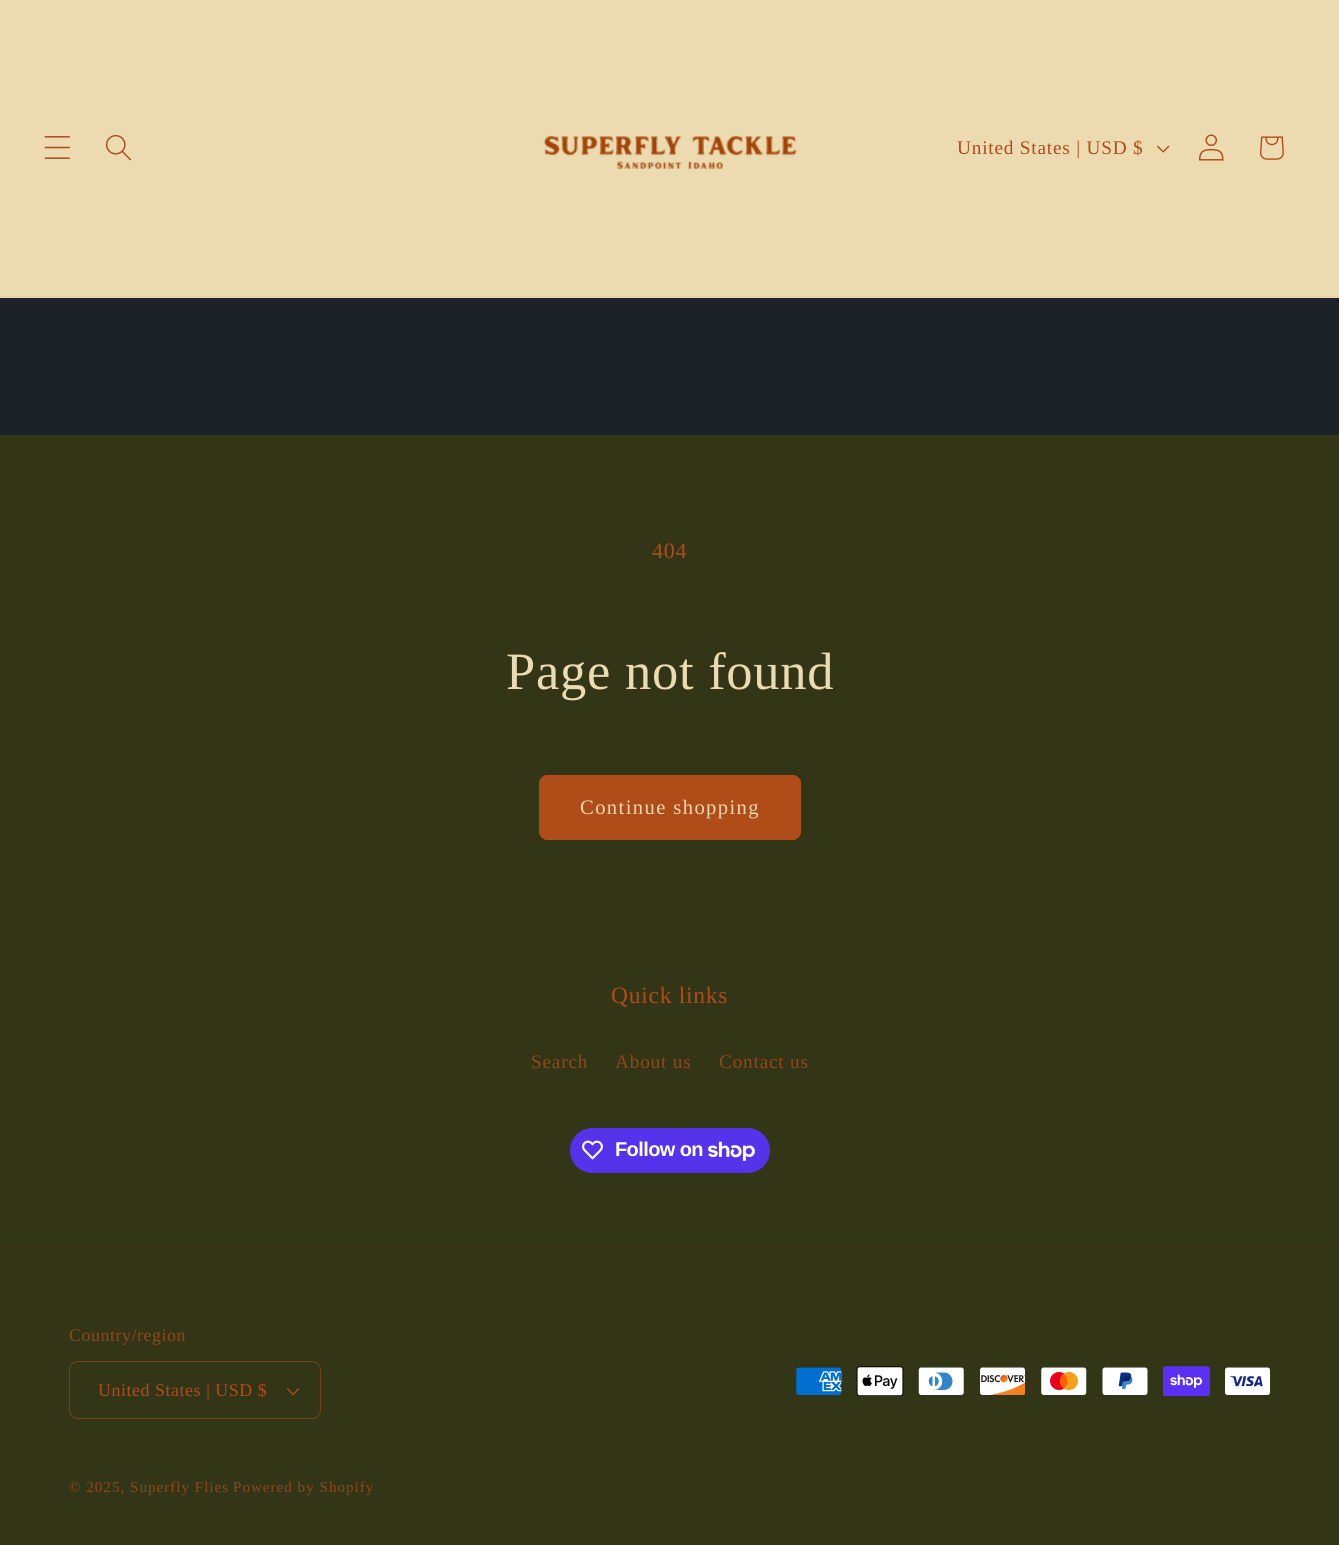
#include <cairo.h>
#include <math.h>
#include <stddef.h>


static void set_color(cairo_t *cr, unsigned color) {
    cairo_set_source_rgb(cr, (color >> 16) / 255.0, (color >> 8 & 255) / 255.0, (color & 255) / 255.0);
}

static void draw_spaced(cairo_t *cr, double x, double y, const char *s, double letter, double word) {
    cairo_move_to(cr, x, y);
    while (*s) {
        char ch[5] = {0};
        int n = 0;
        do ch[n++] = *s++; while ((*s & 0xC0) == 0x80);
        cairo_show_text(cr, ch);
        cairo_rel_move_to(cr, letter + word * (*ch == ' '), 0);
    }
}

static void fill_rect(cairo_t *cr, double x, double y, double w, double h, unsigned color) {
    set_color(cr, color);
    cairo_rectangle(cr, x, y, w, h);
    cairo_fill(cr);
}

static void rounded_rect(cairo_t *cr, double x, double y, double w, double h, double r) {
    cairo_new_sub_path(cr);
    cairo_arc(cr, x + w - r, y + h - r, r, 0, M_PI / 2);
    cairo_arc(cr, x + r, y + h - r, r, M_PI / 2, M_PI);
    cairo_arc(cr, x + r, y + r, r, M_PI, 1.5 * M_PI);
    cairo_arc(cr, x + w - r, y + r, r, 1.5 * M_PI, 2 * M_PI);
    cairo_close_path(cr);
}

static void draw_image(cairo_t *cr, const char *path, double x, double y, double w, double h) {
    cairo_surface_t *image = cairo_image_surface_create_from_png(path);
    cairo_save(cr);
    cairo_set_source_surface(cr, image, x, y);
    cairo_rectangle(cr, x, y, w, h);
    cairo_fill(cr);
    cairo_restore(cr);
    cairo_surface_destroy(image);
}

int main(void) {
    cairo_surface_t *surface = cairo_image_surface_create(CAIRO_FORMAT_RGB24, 1339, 1545);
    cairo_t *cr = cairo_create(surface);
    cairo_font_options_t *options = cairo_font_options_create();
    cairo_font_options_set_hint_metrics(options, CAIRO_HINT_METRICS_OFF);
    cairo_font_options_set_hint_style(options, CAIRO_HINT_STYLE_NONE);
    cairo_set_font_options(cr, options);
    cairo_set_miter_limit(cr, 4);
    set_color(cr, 0x333517);
    cairo_paint(cr);
    fill_rect(cr, 0, 0, 1339, 298, 0xECDAB1);
    fill_rect(cr, 0, 296, 1339, 1, 0xE7CFA5);
    draw_image(cr, "assets/img1.png", 44, 136, 26, 23);
    draw_image(cr, "assets/img2.png", 105, 134, 27, 27);
    draw_image(cr, "assets/img3.png", 543, 135, 254, 35);
    cairo_select_font_face(cr, "Liberation Serif", CAIRO_FONT_SLANT_NORMAL, CAIRO_FONT_WEIGHT_NORMAL);
    cairo_set_font_size(cr, 19.25);
    set_color(cr, 0xB04C18);
    draw_spaced(cr, 957, 154, "United States | USD $", 0.8, 0);
    draw_image(cr, "assets/img4.png", 1157, 145, 13, 8);
    draw_image(cr, "assets/img5.png", 1198, 134, 26, 27);
    draw_image(cr, "assets/img6.png", 1260, 136, 24, 24);
    fill_rect(cr, 0, 298, 1339, 137, 0x1C2228);
    cairo_set_font_size(cr, 22);
    set_color(cr, 0xB04C18);
    draw_spaced(cr, 652, 558, "404", 0.8, 0);
    cairo_set_font_size(cr, 52.5);
    set_color(cr, 0xECDAB1);
    draw_spaced(cr, 506, 689, "Page not found", 0.75, 0);
    set_color(cr, 0xB04C18);
    rounded_rect(cr, 539, 775, 262, 65, 9);
    cairo_fill(cr);
    rounded_rect(cr, 539.5, 775.5, 261, 64, 8.5);
    cairo_set_line_width(cr, 1);
    cairo_stroke(cr);
    cairo_set_font_size(cr, 20.6);
    set_color(cr, 0xECDAB1);
    draw_spaced(cr, 580, 814, "Continue shopping", 1.4, 0);
    cairo_set_font_size(cr, 23.5);
    set_color(cr, 0xB04C18);
    draw_spaced(cr, 611, 1003, "Quick links", 0.75, 0);
    cairo_set_font_size(cr, 19.25);
    set_color(cr, 0x914618);
    draw_spaced(cr, 531, 1068, "Search", 0.8, 0);
    draw_spaced(cr, 615, 1068, "About us", 0.8, 0);
    draw_spaced(cr, 719, 1068, "Contact us", 0.8, 0);
    set_color(cr, 0x5433EB);
    rounded_rect(cr, 570, 1128, 200, 45, 22.5);
    cairo_fill(cr);
    draw_image(cr, "assets/img7.png", 582, 1140, 21, 20);
    cairo_select_font_face(cr, "Liberation Sans", CAIRO_FONT_SLANT_NORMAL, CAIRO_FONT_WEIGHT_BOLD);
    cairo_set_font_size(cr, 20);
    set_color(cr, 0xFFFFFF);
    draw_spaced(cr, 615, 1156, "Follow on", -0.6, 0);
    draw_image(cr, "assets/img8.png", 708, 1141, 47, 20);
    fill_rect(cr, 0, 1246, 1339, 1, 0x3D3717);
    cairo_select_font_face(cr, "Liberation Serif", CAIRO_FONT_SLANT_NORMAL, CAIRO_FONT_WEIGHT_NORMAL);
    cairo_set_font_size(cr, 17.9);
    set_color(cr, 0x914618);
    draw_spaced(cr, 69, 1341, "Country/region", 0.55, 0);
    draw_image(cr, "assets/img9.png", 287, 1388, 13, 7);
    rounded_rect(cr, 69.5, 1361.5, 251, 57, 8.5);
    set_color(cr, 0x784218);
    cairo_stroke(cr);
    set_color(cr, 0xB04C18);
    draw_spaced(cr, 98, 1396, "United States | USD $", 0.55, 0);
    draw_image(cr, "assets/img10.png", 796, 1367, 46, 28);
    draw_image(cr, "assets/img11.png", 856, 1366, 48, 30);
    draw_image(cr, "assets/img12.png", 918, 1367, 46, 28);
    draw_image(cr, "assets/img13.png", 980, 1367, 45, 28);
    draw_image(cr, "assets/img14.png", 1041, 1367, 46, 28);
    draw_image(cr, "assets/img15.png", 1102, 1367, 46, 28);
    draw_image(cr, "assets/img16.png", 1163, 1366, 47, 30);
    draw_image(cr, "assets/img17.png", 1225, 1367, 45, 28);
    cairo_set_font_size(cr, 15.1);
    set_color(cr, 0x914618);
    draw_spaced(cr, 69, 1492, "© 2025, Superfly Flies", 1, 0);
    draw_spaced(cr, 233, 1492, "Powered by Shopify", 1, 0);
    cairo_surface_write_to_png(surface, "output.png");
    cairo_font_options_destroy(options);
    cairo_destroy(cr);
    cairo_surface_destroy(surface);
    return 0;
}
